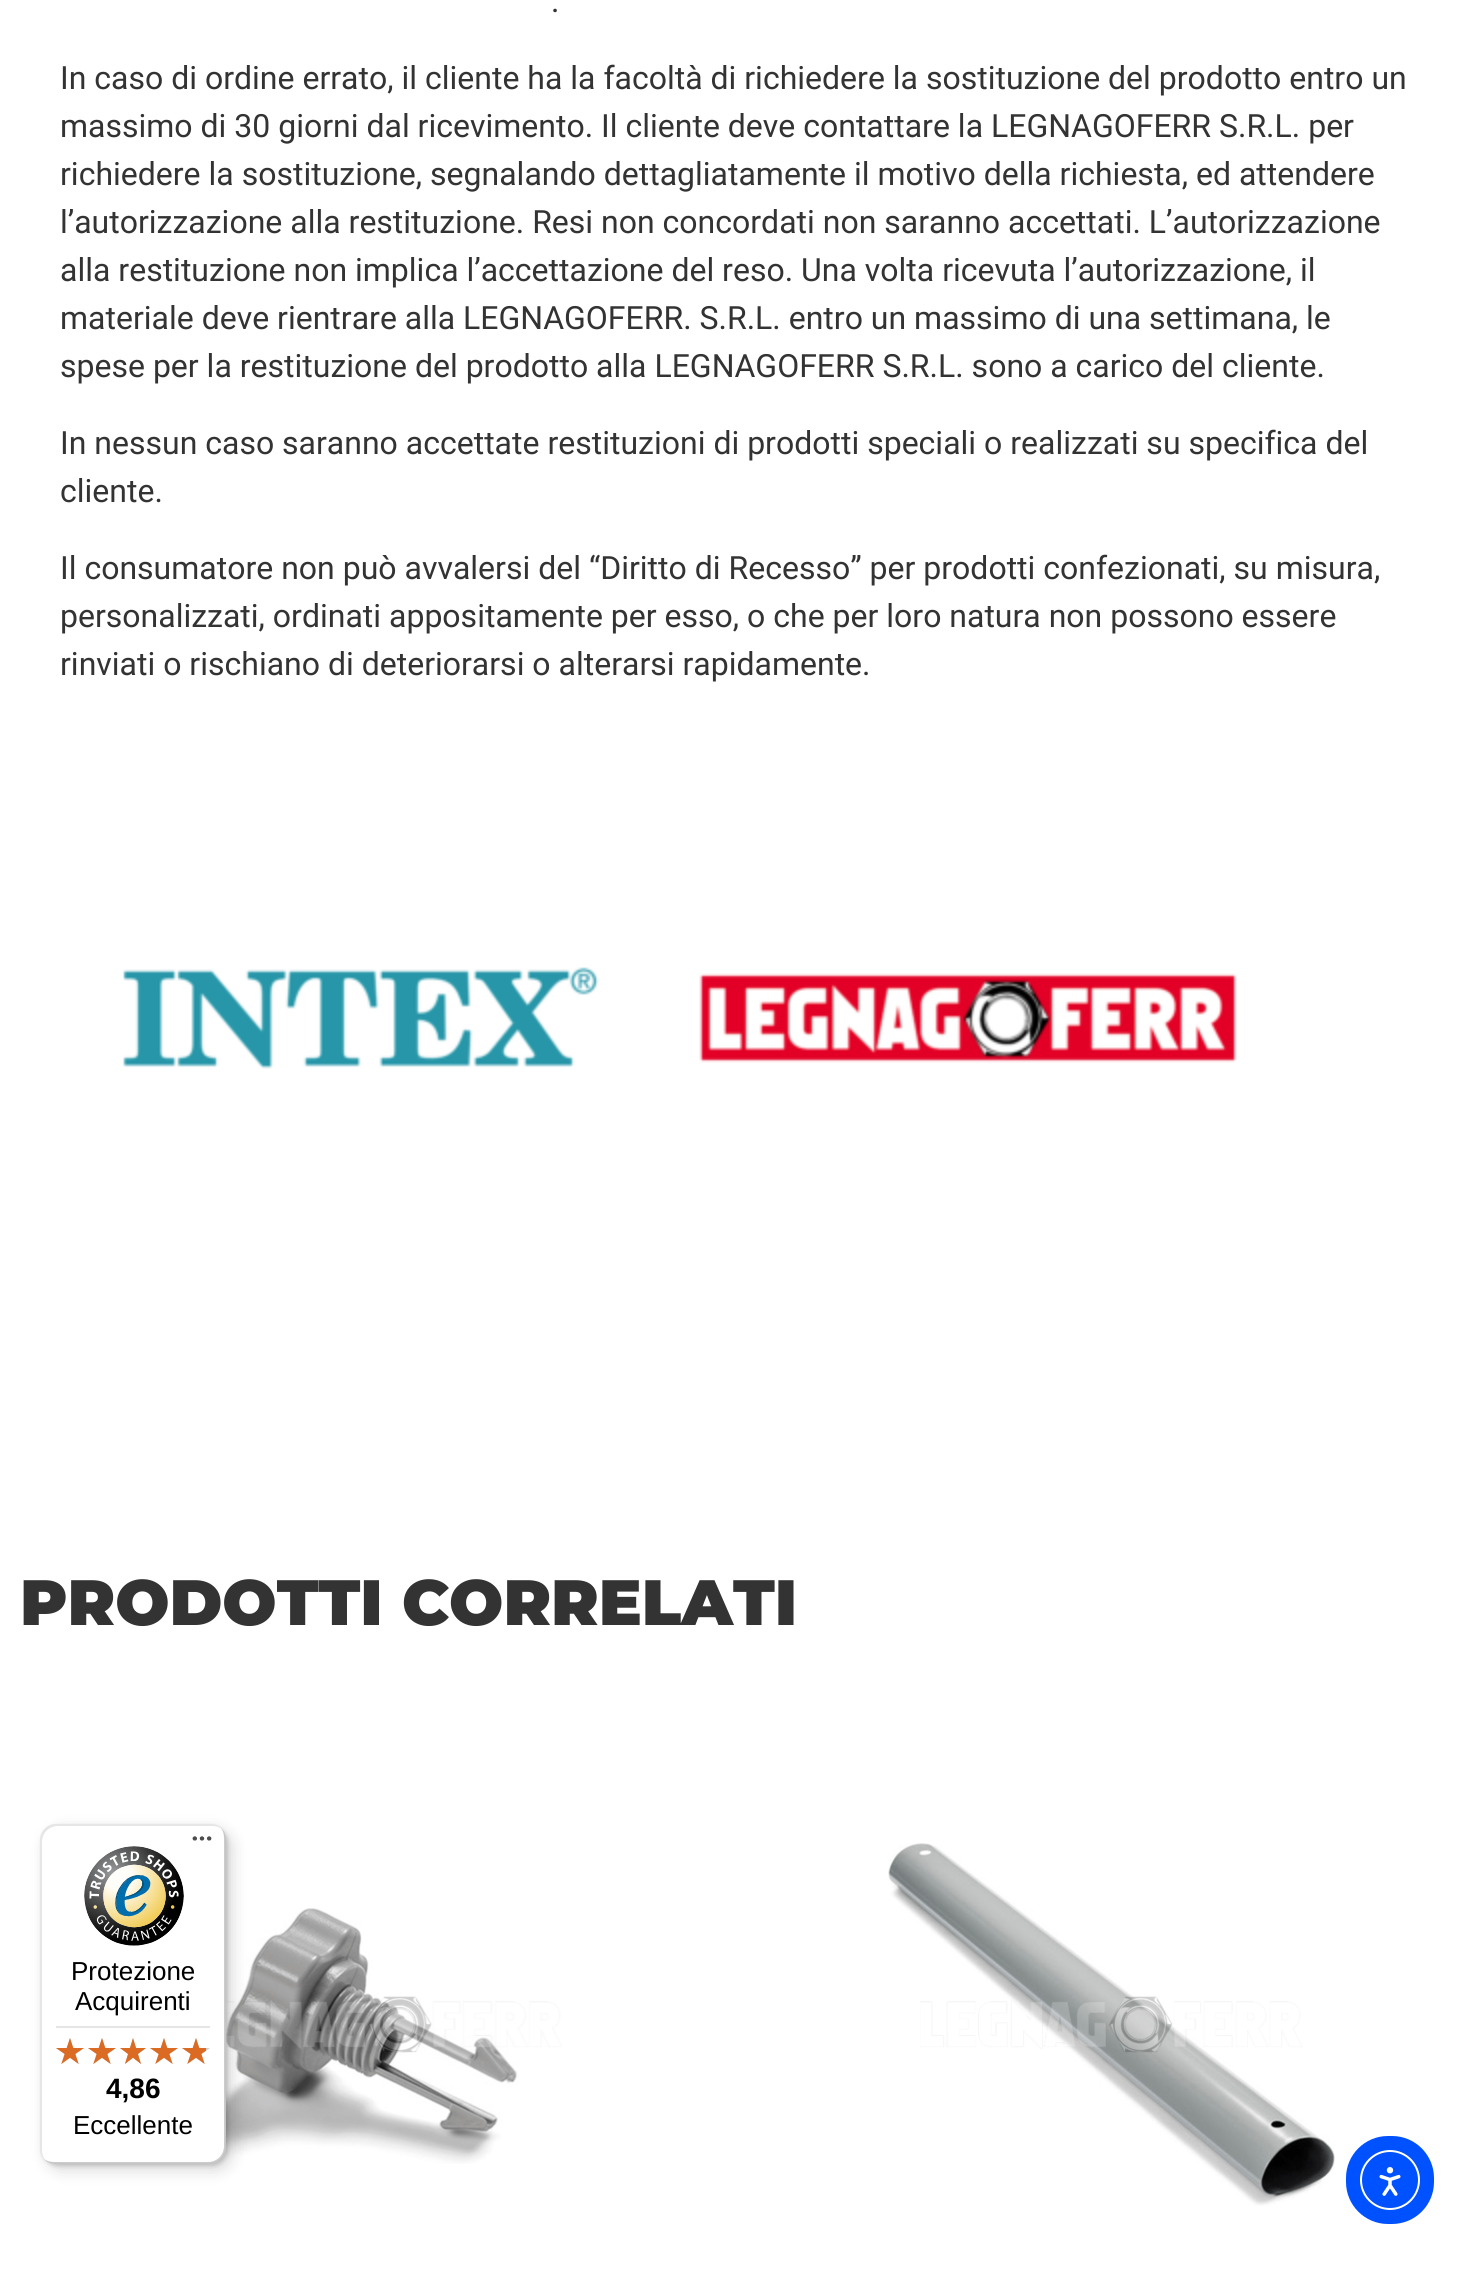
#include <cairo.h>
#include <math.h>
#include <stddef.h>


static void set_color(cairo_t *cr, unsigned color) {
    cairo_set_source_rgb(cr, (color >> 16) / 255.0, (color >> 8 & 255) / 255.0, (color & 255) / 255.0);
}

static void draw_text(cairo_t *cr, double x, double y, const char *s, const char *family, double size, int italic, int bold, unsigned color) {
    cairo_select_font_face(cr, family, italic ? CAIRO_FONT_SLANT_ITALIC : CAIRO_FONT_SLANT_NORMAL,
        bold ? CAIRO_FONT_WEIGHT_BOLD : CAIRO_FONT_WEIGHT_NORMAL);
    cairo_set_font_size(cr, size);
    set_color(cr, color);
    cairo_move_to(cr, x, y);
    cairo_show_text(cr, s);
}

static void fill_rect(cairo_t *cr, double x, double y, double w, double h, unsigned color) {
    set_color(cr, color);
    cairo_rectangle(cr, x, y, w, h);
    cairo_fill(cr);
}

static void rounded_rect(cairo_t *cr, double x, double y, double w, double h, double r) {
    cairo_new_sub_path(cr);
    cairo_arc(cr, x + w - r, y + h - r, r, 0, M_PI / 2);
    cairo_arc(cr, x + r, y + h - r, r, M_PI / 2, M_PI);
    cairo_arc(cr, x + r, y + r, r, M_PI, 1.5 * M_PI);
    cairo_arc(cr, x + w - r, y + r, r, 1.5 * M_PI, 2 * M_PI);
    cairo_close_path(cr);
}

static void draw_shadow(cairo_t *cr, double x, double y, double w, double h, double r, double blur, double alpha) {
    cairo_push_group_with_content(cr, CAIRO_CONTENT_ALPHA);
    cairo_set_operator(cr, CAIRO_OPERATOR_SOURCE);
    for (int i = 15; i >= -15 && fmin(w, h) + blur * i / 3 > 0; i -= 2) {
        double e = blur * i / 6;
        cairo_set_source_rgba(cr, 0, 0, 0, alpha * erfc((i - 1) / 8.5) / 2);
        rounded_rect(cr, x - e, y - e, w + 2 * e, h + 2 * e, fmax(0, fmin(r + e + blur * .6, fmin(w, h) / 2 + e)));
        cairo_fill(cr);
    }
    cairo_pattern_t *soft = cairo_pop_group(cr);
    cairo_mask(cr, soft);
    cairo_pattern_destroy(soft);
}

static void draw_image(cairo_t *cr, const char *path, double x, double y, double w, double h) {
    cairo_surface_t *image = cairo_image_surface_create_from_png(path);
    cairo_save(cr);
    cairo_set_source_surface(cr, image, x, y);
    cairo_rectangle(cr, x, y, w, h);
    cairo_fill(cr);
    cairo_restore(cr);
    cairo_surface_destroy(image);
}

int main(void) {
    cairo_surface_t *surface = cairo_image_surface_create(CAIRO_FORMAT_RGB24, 1482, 2271);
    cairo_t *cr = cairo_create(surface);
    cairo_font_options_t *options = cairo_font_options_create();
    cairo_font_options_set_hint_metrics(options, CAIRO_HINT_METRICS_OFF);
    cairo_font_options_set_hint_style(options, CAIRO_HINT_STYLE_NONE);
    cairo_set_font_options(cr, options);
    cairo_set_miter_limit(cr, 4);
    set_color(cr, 0xFFFFFF);
    cairo_paint(cr);
    draw_text(cr, 551, 12, ".", "Roboto", 32, 0, 0, 0x333333);
    draw_text(cr, 60, 89, "In caso di ordine errato, il cliente ha la facoltà di richiedere la sostituzione del prodotto entro un", "Roboto", 32, 0, 0, 0x333333);
    draw_text(cr, 60, 137, "massimo di 30 giorni dal ricevimento. Il cliente deve contattare la LEGNAGOFERR S.R.L. per", "Roboto", 32, 0, 0, 0x333333);
    draw_text(cr, 60, 185, "richiedere la sostituzione, segnalando dettagliatamente il motivo della richiesta, ed attendere", "Roboto", 32, 0, 0, 0x333333);
    draw_text(cr, 60, 233, "l’autorizzazione alla restituzione. Resi non concordati non saranno accettati. L’autorizzazione", "Roboto", 32, 0, 0, 0x333333);
    draw_text(cr, 60, 281, "alla restituzione non implica l’accettazione del reso. Una volta ricevuta l’autorizzazione, il", "Roboto", 32, 0, 0, 0x333333);
    draw_text(cr, 60, 329, "materiale deve rientrare alla LEGNAGOFERR. S.R.L. entro un massimo di una settimana, le", "Roboto", 32, 0, 0, 0x333333);
    draw_text(cr, 60, 377, "spese per la restituzione del prodotto alla LEGNAGOFERR S.R.L. sono a carico del cliente.", "Roboto", 32, 0, 0, 0x333333);
    draw_text(cr, 60, 454, "In nessun caso saranno accettate restituzioni di prodotti speciali o realizzati su specifica del", "Roboto", 32, 0, 0, 0x333333);
    draw_text(cr, 60, 502, "cliente.", "Roboto", 32, 0, 0, 0x333333);
    draw_text(cr, 60, 579, "Il consumatore non può avvalersi del “Diritto di Recesso” per prodotti confezionati, su misura,", "Roboto", 32, 0, 0, 0x333333);
    draw_text(cr, 60, 627, "personalizzati, ordinati appositamente per esso, o che per loro natura non possono essere", "Roboto", 32, 0, 0, 0x333333);
    draw_text(cr, 60, 675, "rinviati o rischiano di deteriorarsi o alterarsi rapidamente.", "Roboto", 32, 0, 0, 0x333333);
    draw_image(cr, "assets/img1.png", 122, 967, 477, 102);
    draw_image(cr, "assets/img2.png", 699, 973, 538, 90);
    draw_text(cr, 20, 1625, "PRODOTTI CORRELATI", "Montserrat Black", 64, 0, 0, 0x333333);
    draw_image(cr, "assets/img3.png", 210, 1908, 352, 256);
    draw_image(cr, "assets/img4.png", 888, 1843, 447, 363);
    set_color(cr, 0x000000);
    draw_shadow(cr, 46, 1830, 186, 340, 16, 8, 0.15);
    draw_shadow(cr, 42, 1826, 186, 340, 16, 2, 0.15);
    set_color(cr, 0xFFFFFF);
    rounded_rect(cr, 40, 1824, 186, 340, 16);
    cairo_fill(cr);
    cairo_set_source_rgba(cr, 0, 0, 0, 0.1);
    cairo_new_path(cr);
    cairo_move_to(cr, 58, 1826);
    cairo_line_to(cr, 212, 1826);
    cairo_curve_to(cr, 216, 1826, 219, 1827, 222, 1829);
    cairo_curve_to(cr, 219, 1826, 215, 1824, 210, 1824);
    cairo_line_to(cr, 56, 1824);
    cairo_curve_to(cr, 47, 1824, 40, 1831, 40, 1840);
    cairo_line_to(cr, 40, 2148);
    cairo_curve_to(cr, 40, 2153, 42, 2157, 45, 2160);
    cairo_curve_to(cr, 43, 2157, 42, 2154, 42, 2150);
    cairo_line_to(cr, 42, 1842);
    cairo_curve_to(cr, 42, 1833, 49, 1826, 58, 1826);
    cairo_close_path(cr);
    cairo_fill(cr);
    cairo_set_source_rgba(cr, 0, 0, 0, 0.2);
    cairo_new_path(cr);
    cairo_move_to(cr, 44, 2159);
    cairo_curve_to(cr, 47, 2162, 51, 2164, 56, 2164);
    cairo_line_to(cr, 210, 2164);
    cairo_curve_to(cr, 219, 2164, 226, 2157, 226, 2148);
    cairo_line_to(cr, 226, 1840);
    cairo_curve_to(cr, 226, 1835, 224, 1831, 221, 1828);
    cairo_curve_to(cr, 223, 1831, 224, 1834, 224, 1838);
    cairo_line_to(cr, 224, 2146);
    cairo_curve_to(cr, 224, 2155, 217, 2162, 208, 2162);
    cairo_line_to(cr, 54, 2162);
    cairo_curve_to(cr, 50, 2162, 47, 2161, 44, 2159);
    cairo_close_path(cr);
    cairo_fill(cr);
    cairo_set_source_rgba(cr, 0.196, 0.196, 0.196, 0.2);
    cairo_new_path(cr);
    cairo_move_to(cr, 45, 2159);
    cairo_curve_to(cr, 48, 2162, 52, 2164, 56, 2164);
    cairo_line_to(cr, 210, 2164);
    cairo_curve_to(cr, 219, 2164, 226, 2157, 226, 2148);
    cairo_line_to(cr, 226, 1840);
    cairo_curve_to(cr, 226, 1836, 224, 1832, 221, 1829);
    cairo_curve_to(cr, 224, 1832, 225, 1835, 225, 1839);
    cairo_line_to(cr, 225, 2147);
    cairo_curve_to(cr, 225, 2156, 218, 2163, 209, 2163);
    cairo_line_to(cr, 55, 2163);
    cairo_curve_to(cr, 51, 2163, 48, 2162, 45, 2159);
    cairo_close_path(cr);
    cairo_fill(cr);
    cairo_set_source_rgba(cr, 1, 1, 1, 0.3);
    cairo_new_path(cr);
    cairo_move_to(cr, 45, 2159);
    cairo_curve_to(cr, 48, 2162, 52, 2164, 56, 2164);
    cairo_line_to(cr, 210, 2164);
    cairo_curve_to(cr, 219, 2164, 226, 2157, 226, 2148);
    cairo_line_to(cr, 226, 1840);
    cairo_curve_to(cr, 226, 1836, 224, 1832, 221, 1829);
    cairo_curve_to(cr, 224, 1832, 225, 1835, 225, 1839);
    cairo_line_to(cr, 225, 2147);
    cairo_curve_to(cr, 225, 2156, 218, 2163, 209, 2163);
    cairo_line_to(cr, 55, 2163);
    cairo_curve_to(cr, 51, 2163, 48, 2162, 45, 2159);
    cairo_close_path(cr);
    cairo_fill(cr);
    draw_image(cr, "assets/img5.png", 192, 1836, 20, 5);
    draw_image(cr, "assets/img6.png", 84, 1846, 100, 100);
    draw_text(cr, 71, 1980, "Protezione", "Liberation Sans", 26, 0, 0, 0x000000);
    draw_text(cr, 75, 2010, "Acquirenti", "Liberation Sans", 26, 0, 0, 0x000000);
    fill_rect(cr, 56, 2026, 154, 2, 0xE5E5E5);
    draw_image(cr, "assets/img7.png", 56, 2038, 28, 26);
    draw_image(cr, "assets/img7.png", 88, 2038, 28, 26);
    draw_image(cr, "assets/img8.png", 120, 2038, 26, 26);
    draw_image(cr, "assets/img7.png", 150, 2038, 28, 26);
    draw_image(cr, "assets/img7.png", 182, 2038, 28, 26);
    draw_image(cr, "assets/img9.png", 56, 2038, 28, 26);
    draw_image(cr, "assets/img9.png", 88, 2038, 28, 26);
    draw_image(cr, "assets/img10.png", 120, 2038, 26, 26);
    draw_image(cr, "assets/img9.png", 150, 2038, 28, 26);
    draw_image(cr, "assets/img11.png", 182, 2038, 24, 26);
    draw_text(cr, 106, 2098, "4,86", "Liberation Sans", 28, 0, 1, 0x000000);
    draw_text(cr, 73, 2134, "Eccellente", "Liberation Sans", 26, 0, 0, 0x000000);
    set_color(cr, 0x0051FF);
    rounded_rect(cr, 1346, 2136, 88, 88, 42);
    cairo_fill(cr);
    cairo_arc(cr, 1390, 2180, 29, 0, 2 * M_PI);
    set_color(cr, 0xFFFFFF);
    cairo_stroke(cr);
    draw_image(cr, "assets/img12.png", 1379, 2167, 22, 29);
    cairo_surface_write_to_png(surface, "output.png");
    cairo_font_options_destroy(options);
    cairo_destroy(cr);
    cairo_surface_destroy(surface);
    return 0;
}
